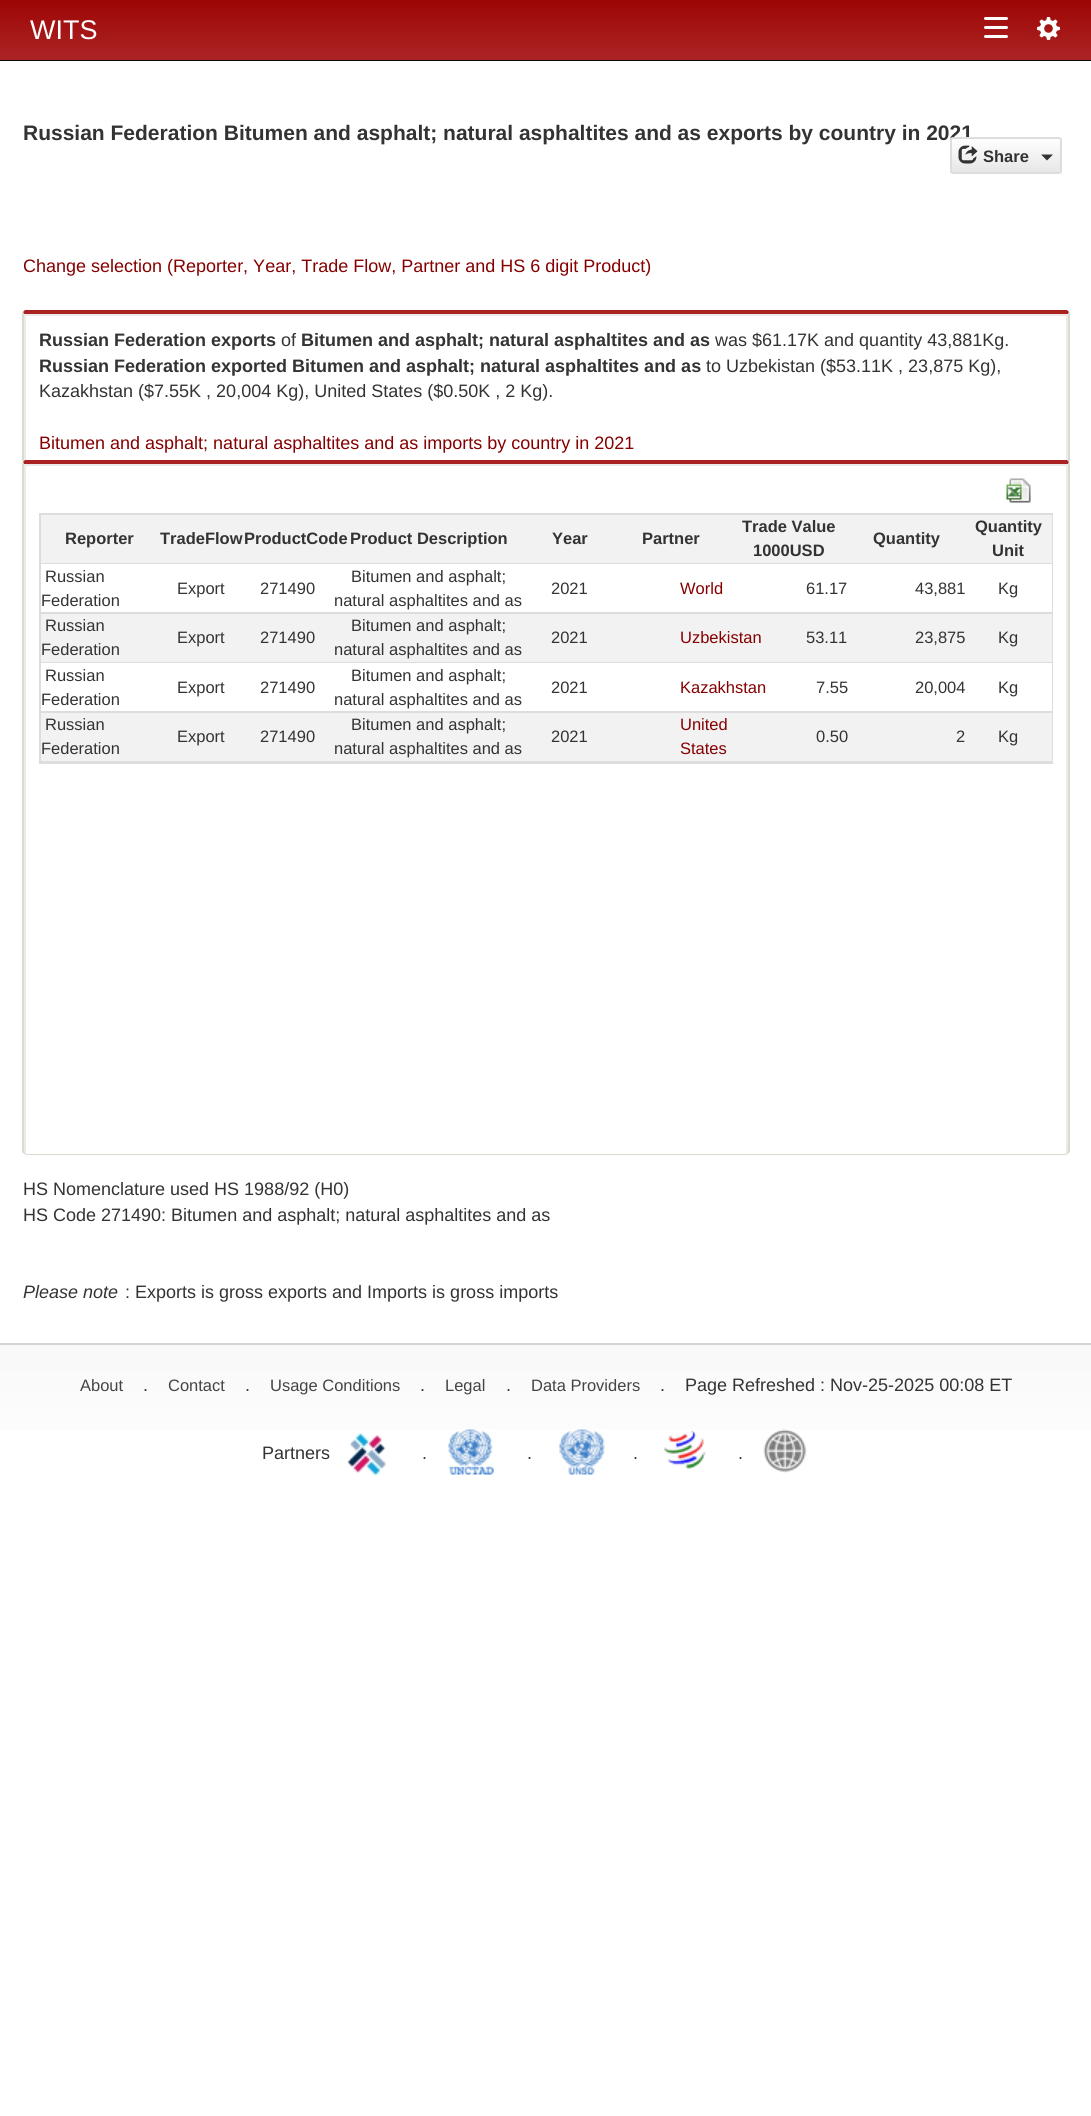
#include <cairo.h>
#include <math.h>
#include <stddef.h>


static void set_color(cairo_t *cr, unsigned color) {
    cairo_set_source_rgb(cr, (color >> 16) / 255.0, (color >> 8 & 255) / 255.0, (color & 255) / 255.0);
}

static void draw_text(cairo_t *cr, double x, double y, const char *s, const char *family, double size, int italic, int bold, unsigned color) {
    cairo_select_font_face(cr, family, italic ? CAIRO_FONT_SLANT_ITALIC : CAIRO_FONT_SLANT_NORMAL,
        bold ? CAIRO_FONT_WEIGHT_BOLD : CAIRO_FONT_WEIGHT_NORMAL);
    cairo_set_font_size(cr, size);
    set_color(cr, color);
    cairo_move_to(cr, x, y);
    cairo_show_text(cr, s);
}

static void fill_rect(cairo_t *cr, double x, double y, double w, double h, unsigned color) {
    set_color(cr, color);
    cairo_rectangle(cr, x, y, w, h);
    cairo_fill(cr);
}

static void rounded_rect(cairo_t *cr, double x, double y, double w, double h, double r) {
    cairo_new_sub_path(cr);
    cairo_arc(cr, x + w - r, y + h - r, r, 0, M_PI / 2);
    cairo_arc(cr, x + r, y + h - r, r, M_PI / 2, M_PI);
    cairo_arc(cr, x + r, y + r, r, M_PI, 1.5 * M_PI);
    cairo_arc(cr, x + w - r, y + r, r, 1.5 * M_PI, 2 * M_PI);
    cairo_close_path(cr);
}

static void draw_image(cairo_t *cr, const char *path, double x, double y, double w, double h) {
    cairo_surface_t *image = cairo_image_surface_create_from_png(path);
    cairo_save(cr);
    cairo_set_source_surface(cr, image, x, y);
    cairo_rectangle(cr, x, y, w, h);
    cairo_fill(cr);
    cairo_restore(cr);
    cairo_surface_destroy(image);
}

int main(void) {
    cairo_surface_t *surface = cairo_image_surface_create(CAIRO_FORMAT_RGB24, 1091, 2116);
    cairo_t *cr = cairo_create(surface);
    cairo_font_options_t *options = cairo_font_options_create();
    cairo_font_options_set_hint_metrics(options, CAIRO_HINT_METRICS_OFF);
    cairo_font_options_set_hint_style(options, CAIRO_HINT_STYLE_NONE);
    cairo_set_font_options(cr, options);
    cairo_set_miter_limit(cr, 4);
    cairo_pattern_t *gradient;
    set_color(cr, 0xFFFFFF);
    cairo_paint(cr);
    fill_rect(cr, 0, 60, 1091, 1, 0x080808);
    gradient = cairo_pattern_create_linear(546, 0, 546, 54);
    cairo_pattern_add_color_stop_rgba(gradient, 0, 0.62, 0.02, 0.02, 1);
    cairo_pattern_add_color_stop_rgba(gradient, 1, 0.667, 0.133, 0.133, 1);
    cairo_set_source(cr, gradient);
    cairo_pattern_destroy(gradient);
    cairo_rectangle(cr, 0, 0, 1091, 54);
    cairo_fill(cr);
    fill_rect(cr, 0, 54, 1091, 6, 0xAA2222);
    draw_text(cr, 30, 39, "WITS", "Liberation Sans", 27, 0, 0, 0xFFFFFF);
    rounded_rect(cr, 984, 17, 24, 3, 1.5);
    cairo_fill(cr);
    rounded_rect(cr, 984, 26, 24, 3, 1.5);
    cairo_fill(cr);
    rounded_rect(cr, 984, 35, 24, 3, 1.5);
    cairo_fill(cr);
    draw_image(cr, "assets/img1.png", 1037, 17, 23, 23);
    draw_text(cr, 23, 140, "Russian Federation Bitumen and asphalt; natural asphaltites and as exports by country in 2021", "Liberation Sans", 21, 0, 1, 0x333333);
    cairo_save(cr);
    rounded_rect(cr, 950, 137, 112, 37, 3);
    cairo_clip(cr);
    gradient = cairo_pattern_create_linear(1006, 138, 1006, 173);
    cairo_pattern_add_color_stop_rgba(gradient, 0, 1, 1, 1, 1);
    cairo_pattern_add_color_stop_rgba(gradient, 1, 0.902, 0.902, 0.902, 1);
    cairo_set_source(cr, gradient);
    cairo_pattern_destroy(gradient);
    cairo_rectangle(cr, 950, 138, 112, 35);
    cairo_fill(cr);
    cairo_restore(cr);
    rounded_rect(cr, 951, 138, 110, 35, 2);
    set_color(cr, 0xDDDDDD);
    cairo_stroke(cr);
    draw_image(cr, "assets/img2.png", 958, 145, 20, 19);
    draw_text(cr, 983, 162, "Share", "Liberation Sans", 16.5, 0, 1, 0x333333);
    cairo_new_path(cr);
    cairo_move_to(cr, 1041, 154.5);
    cairo_line_to(cr, 1053, 154.5);
    cairo_line_to(cr, 1047, 160.5);
    cairo_close_path(cr);
    cairo_fill(cr);
    draw_text(cr, 23, 272, "Change selection (Reporter, Year, Trade Flow, Partner and HS 6 digit Product)", "Liberation Sans", 18, 0, 0, 0x850000);
    set_color(cr, 0xEBEBEB);
    cairo_new_path(cr);
    cairo_move_to(cr, 27, 314);
    cairo_curve_to(cr, 25, 314, 24, 314, 24, 315);
    cairo_line_to(cr, 24, 531);
    cairo_curve_to(cr, 24, 533, 25, 534, 27, 534);
    cairo_curve_to(cr, 26, 534, 26, 533, 26, 532);
    cairo_line_to(cr, 26, 316);
    cairo_line_to(cr, 1066, 316);
    cairo_line_to(cr, 1066, 532);
    cairo_curve_to(cr, 1066, 533, 1066, 534, 1065, 534);
    cairo_curve_to(cr, 1067, 534, 1068, 533, 1068, 531);
    cairo_line_to(cr, 1068, 315);
    cairo_curve_to(cr, 1068, 314, 1067, 314, 1065, 314);
    cairo_close_path(cr);
    cairo_fill(cr);
    set_color(cr, 0xAA2222);
    cairo_new_path(cr);
    cairo_move_to(cr, 27, 314);
    cairo_line_to(cr, 24, 314);
    cairo_line_to(cr, 23, 312);
    cairo_line_to(cr, 25, 310);
    cairo_line_to(cr, 1067, 310);
    cairo_line_to(cr, 1069, 312);
    cairo_line_to(cr, 1068, 314);
    cairo_line_to(cr, 1065, 314);
    cairo_close_path(cr);
    cairo_fill(cr);
    set_color(cr, 0xD7DCCF);
    cairo_new_path(cr);
    cairo_move_to(cr, 1070, 533);
    cairo_line_to(cr, 1068, 534);
    cairo_line_to(cr, 1067, 533);
    cairo_line_to(cr, 1068, 531);
    cairo_line_to(cr, 1068, 315);
    cairo_line_to(cr, 1068, 314);
    cairo_line_to(cr, 1069, 312);
    cairo_line_to(cr, 1070, 313);
    cairo_close_path(cr);
    cairo_fill(cr);
    cairo_new_path(cr);
    cairo_move_to(cr, 22, 313);
    cairo_line_to(cr, 23, 312);
    cairo_line_to(cr, 24, 314);
    cairo_line_to(cr, 24, 315);
    cairo_line_to(cr, 24, 531);
    cairo_line_to(cr, 25, 533);
    cairo_line_to(cr, 24, 534);
    cairo_line_to(cr, 22, 533);
    cairo_close_path(cr);
    cairo_fill(cr);
    draw_text(cr, 39, 346, "Russian Federation exports", "Liberation Sans", 18, 0, 1, 0x333333);
    draw_text(cr, 281, 346, "of", "Liberation Sans", 18, 0, 0, 0x333333);
    draw_text(cr, 301, 346, "Bitumen and asphalt; natural asphaltites and as", "Liberation Sans", 18, 0, 1, 0x333333);
    draw_text(cr, 715, 346, "was $61.17K and quantity 43,881Kg.", "Liberation Sans", 18, 0, 0, 0x333333);
    draw_text(cr, 39, 372, "Russian Federation exported Bitumen and asphalt; natural asphaltites and as", "Liberation Sans", 18, 0, 1, 0x333333);
    draw_text(cr, 706, 372, "to Uzbekistan ($53.11K , 23,875 Kg),", "Liberation Sans", 18, 0, 0, 0x333333);
    draw_text(cr, 39, 397, "Kazakhstan ($7.55K , 20,004 Kg), United States ($0.50K , 2 Kg).", "Liberation Sans", 18, 0, 0, 0x333333);
    draw_text(cr, 39, 449, "Bitumen and asphalt; natural asphaltites and as imports by country in 2021", "Liberation Sans", 18, 0, 0, 0x850000);
    fill_rect(cr, 22, 461, 1048, 73, 0xFFFFFF);
    set_color(cr, 0xEBEBEB);
    cairo_new_path(cr);
    cairo_move_to(cr, 27, 464);
    cairo_curve_to(cr, 25, 464, 24, 464, 24, 465);
    cairo_line_to(cr, 24, 1150);
    cairo_curve_to(cr, 24, 1152, 25, 1153, 26, 1153);
    cairo_line_to(cr, 26, 466);
    cairo_line_to(cr, 1066, 466);
    cairo_line_to(cr, 1066, 1153);
    cairo_curve_to(cr, 1067, 1153, 1068, 1152, 1068, 1150);
    cairo_line_to(cr, 1068, 465);
    cairo_curve_to(cr, 1068, 464, 1067, 464, 1065, 464);
    cairo_close_path(cr);
    cairo_fill(cr);
    set_color(cr, 0xAA2222);
    cairo_new_path(cr);
    cairo_move_to(cr, 27, 464);
    cairo_line_to(cr, 24, 464);
    cairo_line_to(cr, 23, 462);
    cairo_line_to(cr, 25, 460);
    cairo_line_to(cr, 1067, 460);
    cairo_line_to(cr, 1069, 462);
    cairo_line_to(cr, 1068, 464);
    cairo_line_to(cr, 1065, 464);
    cairo_close_path(cr);
    cairo_fill(cr);
    set_color(cr, 0xD7DCCF);
    cairo_new_path(cr);
    cairo_move_to(cr, 1070, 1152);
    cairo_line_to(cr, 1068, 1154);
    cairo_line_to(cr, 1067, 1153);
    cairo_line_to(cr, 1068, 1150);
    cairo_line_to(cr, 1068, 465);
    cairo_line_to(cr, 1068, 464);
    cairo_line_to(cr, 1069, 462);
    cairo_line_to(cr, 1070, 463);
    cairo_close_path(cr);
    cairo_fill(cr);
    cairo_new_path(cr);
    cairo_move_to(cr, 27, 1155);
    cairo_line_to(cr, 1065, 1155);
    cairo_line_to(cr, 1068, 1154);
    cairo_line_to(cr, 1067, 1153);
    cairo_line_to(cr, 1065, 1154);
    cairo_line_to(cr, 27, 1154);
    cairo_line_to(cr, 25, 1153);
    cairo_line_to(cr, 24, 1154);
    cairo_close_path(cr);
    cairo_fill(cr);
    cairo_new_path(cr);
    cairo_move_to(cr, 22, 463);
    cairo_line_to(cr, 23, 462);
    cairo_line_to(cr, 24, 464);
    cairo_line_to(cr, 24, 465);
    cairo_line_to(cr, 24, 1150);
    cairo_line_to(cr, 25, 1153);
    cairo_line_to(cr, 24, 1154);
    cairo_line_to(cr, 22, 1152);
    cairo_close_path(cr);
    cairo_fill(cr);
    draw_image(cr, "assets/img3.png", 1006, 478, 25, 25);
    cairo_rectangle(cr, 40, 514, 1012, 249);
    set_color(cr, 0xDDDDDD);
    cairo_stroke(cr);
    fill_rect(cr, 41, 515, 1011, 48, 0xF2F2F2);
    fill_rect(cr, 41, 563, 1011, 1, 0xDDDDDD);
    draw_text(cr, 65, 544, "Reporter", "Liberation Sans", 16.5, 0, 1, 0x333333);
    draw_text(cr, 160, 544, "TradeFlow", "Liberation Sans", 16.5, 0, 1, 0x333333);
    draw_text(cr, 244, 544, "ProductCode", "Liberation Sans", 16.5, 0, 1, 0x333333);
    draw_text(cr, 350, 544, "Product Description", "Liberation Sans", 16.5, 0, 1, 0x333333);
    draw_text(cr, 552, 544, "Year", "Liberation Sans", 16.5, 0, 1, 0x333333);
    draw_text(cr, 642, 544, "Partner", "Liberation Sans", 16.5, 0, 1, 0x333333);
    draw_text(cr, 742, 532, "Trade Value", "Liberation Sans", 16.5, 0, 1, 0x333333);
    draw_text(cr, 753, 556, "1000USD", "Liberation Sans", 16.5, 0, 1, 0x333333);
    draw_text(cr, 873, 544, "Quantity", "Liberation Sans", 16.5, 0, 1, 0x333333);
    draw_text(cr, 975, 532, "Quantity", "Liberation Sans", 16.5, 0, 1, 0x333333);
    draw_text(cr, 992, 556, "Unit", "Liberation Sans", 16.5, 0, 1, 0x333333);
    fill_rect(cr, 1051, 564, 1, 48, 0xFFFFFF);
    fill_rect(cr, 41, 612, 1011, 2, 0xDDDDDD);
    draw_text(cr, 45, 582, "Russian", "Liberation Sans", 16.5, 0, 0, 0x333333);
    draw_text(cr, 41, 606, "Federation", "Liberation Sans", 16.5, 0, 0, 0x333333);
    draw_text(cr, 177, 594, "Export", "Liberation Sans", 16.5, 0, 0, 0x333333);
    draw_text(cr, 260, 594, "271490", "Liberation Sans", 16.5, 0, 0, 0x333333);
    draw_text(cr, 351, 582, "Bitumen and asphalt;", "Liberation Sans", 16.5, 0, 0, 0x333333);
    draw_text(cr, 334, 606, "natural asphaltites and as", "Liberation Sans", 16.5, 0, 0, 0x333333);
    draw_text(cr, 551, 594, "2021", "Liberation Sans", 16.5, 0, 0, 0x333333);
    draw_text(cr, 680, 594, "World", "Liberation Sans", 16.5, 0, 0, 0x850000);
    draw_text(cr, 806, 594, "61.17", "Liberation Sans", 16.5, 0, 0, 0x333333);
    draw_text(cr, 915, 594, "43,881", "Liberation Sans", 16.5, 0, 0, 0x333333);
    draw_text(cr, 998, 594, "Kg", "Liberation Sans", 16.5, 0, 0, 0x333333);
    fill_rect(cr, 41, 614, 1011, 48, 0xF2F2F2);
    fill_rect(cr, 41, 662, 1011, 1, 0xDDDDDD);
    draw_text(cr, 45, 631, "Russian", "Liberation Sans", 16.5, 0, 0, 0x333333);
    draw_text(cr, 41, 655, "Federation", "Liberation Sans", 16.5, 0, 0, 0x333333);
    draw_text(cr, 177, 643, "Export", "Liberation Sans", 16.5, 0, 0, 0x333333);
    draw_text(cr, 260, 643, "271490", "Liberation Sans", 16.5, 0, 0, 0x333333);
    draw_text(cr, 351, 631, "Bitumen and asphalt;", "Liberation Sans", 16.5, 0, 0, 0x333333);
    draw_text(cr, 334, 655, "natural asphaltites and as", "Liberation Sans", 16.5, 0, 0, 0x333333);
    draw_text(cr, 551, 643, "2021", "Liberation Sans", 16.5, 0, 0, 0x333333);
    draw_text(cr, 680, 643, "Uzbekistan", "Liberation Sans", 16.5, 0, 0, 0x850000);
    draw_text(cr, 806, 643, "53.11", "Liberation Sans", 16.5, 0, 0, 0x333333);
    draw_text(cr, 915, 643, "23,875", "Liberation Sans", 16.5, 0, 0, 0x333333);
    draw_text(cr, 998, 643, "Kg", "Liberation Sans", 16.5, 0, 0, 0x333333);
    fill_rect(cr, 1051, 663, 1, 48, 0xFFFFFF);
    fill_rect(cr, 41, 711, 1011, 2, 0xDDDDDD);
    draw_text(cr, 45, 681, "Russian", "Liberation Sans", 16.5, 0, 0, 0x333333);
    draw_text(cr, 41, 705, "Federation", "Liberation Sans", 16.5, 0, 0, 0x333333);
    draw_text(cr, 177, 693, "Export", "Liberation Sans", 16.5, 0, 0, 0x333333);
    draw_text(cr, 260, 693, "271490", "Liberation Sans", 16.5, 0, 0, 0x333333);
    draw_text(cr, 351, 681, "Bitumen and asphalt;", "Liberation Sans", 16.5, 0, 0, 0x333333);
    draw_text(cr, 334, 705, "natural asphaltites and as", "Liberation Sans", 16.5, 0, 0, 0x333333);
    draw_text(cr, 551, 693, "2021", "Liberation Sans", 16.5, 0, 0, 0x333333);
    draw_text(cr, 680, 693, "Kazakhstan", "Liberation Sans", 16.5, 0, 0, 0x850000);
    draw_text(cr, 816, 693, "7.55", "Liberation Sans", 16.5, 0, 0, 0x333333);
    draw_text(cr, 915, 693, "20,004", "Liberation Sans", 16.5, 0, 0, 0x333333);
    draw_text(cr, 998, 693, "Kg", "Liberation Sans", 16.5, 0, 0, 0x333333);
    fill_rect(cr, 41, 713, 1011, 48, 0xF2F2F2);
    fill_rect(cr, 41, 761, 1011, 1, 0xDDDDDD);
    draw_text(cr, 45, 730, "Russian", "Liberation Sans", 16.5, 0, 0, 0x333333);
    draw_text(cr, 41, 754, "Federation", "Liberation Sans", 16.5, 0, 0, 0x333333);
    draw_text(cr, 177, 742, "Export", "Liberation Sans", 16.5, 0, 0, 0x333333);
    draw_text(cr, 260, 742, "271490", "Liberation Sans", 16.5, 0, 0, 0x333333);
    draw_text(cr, 351, 730, "Bitumen and asphalt;", "Liberation Sans", 16.5, 0, 0, 0x333333);
    draw_text(cr, 334, 754, "natural asphaltites and as", "Liberation Sans", 16.5, 0, 0, 0x333333);
    draw_text(cr, 551, 742, "2021", "Liberation Sans", 16.5, 0, 0, 0x333333);
    draw_text(cr, 680, 730, "United", "Liberation Sans", 16.5, 0, 0, 0x850000);
    draw_text(cr, 680, 754, "States", "Liberation Sans", 16.5, 0, 0, 0x850000);
    draw_text(cr, 816, 742, "0.50", "Liberation Sans", 16.5, 0, 0, 0x333333);
    draw_text(cr, 956, 742, "2", "Liberation Sans", 16.5, 0, 0, 0x333333);
    draw_text(cr, 998, 742, "Kg", "Liberation Sans", 16.5, 0, 0, 0x333333);
    draw_text(cr, 23, 1195, "HS Nomenclature used HS 1988/92 (H0)", "Liberation Sans", 18, 0, 0, 0x333333);
    draw_text(cr, 23, 1221, "HS Code 271490: Bitumen and asphalt; natural asphaltites and as", "Liberation Sans", 18, 0, 0, 0x333333);
    draw_text(cr, 23, 1298, "Please note", "Liberation Sans", 18, 1, 0, 0x333333);
    draw_text(cr, 125, 1298, ": Exports is gross exports and Imports is gross imports", "Liberation Sans", 18, 0, 0, 0x333333);
    gradient = cairo_pattern_create_linear(546, 1344, 546, 1478);
    cairo_pattern_add_color_stop_rgba(gradient, 0, 0.973, 0.973, 0.973, 1);
    cairo_pattern_add_color_stop_rgba(gradient, 1, 1, 1, 1, 1);
    cairo_set_source(cr, gradient);
    cairo_pattern_destroy(gradient);
    cairo_rectangle(cr, 0, 1345, 1091, 85);
    cairo_fill(cr);
    fill_rect(cr, 0, 1343, 1091, 2, 0xD4D4D4);
    draw_text(cr, 80, 1391, "About", "Liberation Sans", 16.5, 0, 0, 0x444444);
    draw_text(cr, 143, 1391, ".", "Liberation Sans", 18, 0, 0, 0x333333);
    draw_text(cr, 168, 1391, "Contact", "Liberation Sans", 16.5, 0, 0, 0x444444);
    draw_text(cr, 245, 1391, ".", "Liberation Sans", 18, 0, 0, 0x333333);
    draw_text(cr, 270, 1391, "Usage Conditions", "Liberation Sans", 16.5, 0, 0, 0x444444);
    draw_text(cr, 420, 1391, ".", "Liberation Sans", 18, 0, 0, 0x333333);
    draw_text(cr, 445, 1391, "Legal", "Liberation Sans", 16.5, 0, 0, 0x444444);
    draw_text(cr, 506, 1391, ".", "Liberation Sans", 18, 0, 0, 0x333333);
    draw_text(cr, 531, 1391, "Data Providers", "Liberation Sans", 16.5, 0, 0, 0x444444);
    draw_text(cr, 660, 1391, ".", "Liberation Sans", 18, 0, 0, 0x333333);
    draw_text(cr, 685, 1391, "Page Refreshed : Nov-25-2025 00:08 ET", "Liberation Sans", 18, 0, 0, 0x333333);
    draw_text(cr, 262, 1459, "Partners", "Liberation Sans", 18, 0, 0, 0x333333);
    draw_image(cr, "assets/img4.png", 347, 1432, 39, 45);
    draw_text(cr, 422, 1459, ".", "Liberation Sans", 18, 0, 0, 0x333333);
    draw_image(cr, "assets/img5.png", 448, 1429, 46, 46);
    draw_text(cr, 527, 1459, ".", "Liberation Sans", 18, 0, 0, 0x333333);
    draw_image(cr, "assets/img6.png", 559, 1429, 46, 46);
    draw_text(cr, 633, 1459, ".", "Liberation Sans", 18, 0, 0, 0x333333);
    draw_image(cr, "assets/img7.png", 664, 1430, 42, 39);
    draw_text(cr, 738, 1459, ".", "Liberation Sans", 18, 0, 0, 0x333333);
    draw_image(cr, "assets/img8.png", 763, 1429, 44, 44);
    cairo_surface_write_to_png(surface, "output.png");
    cairo_font_options_destroy(options);
    cairo_destroy(cr);
    cairo_surface_destroy(surface);
    return 0;
}
